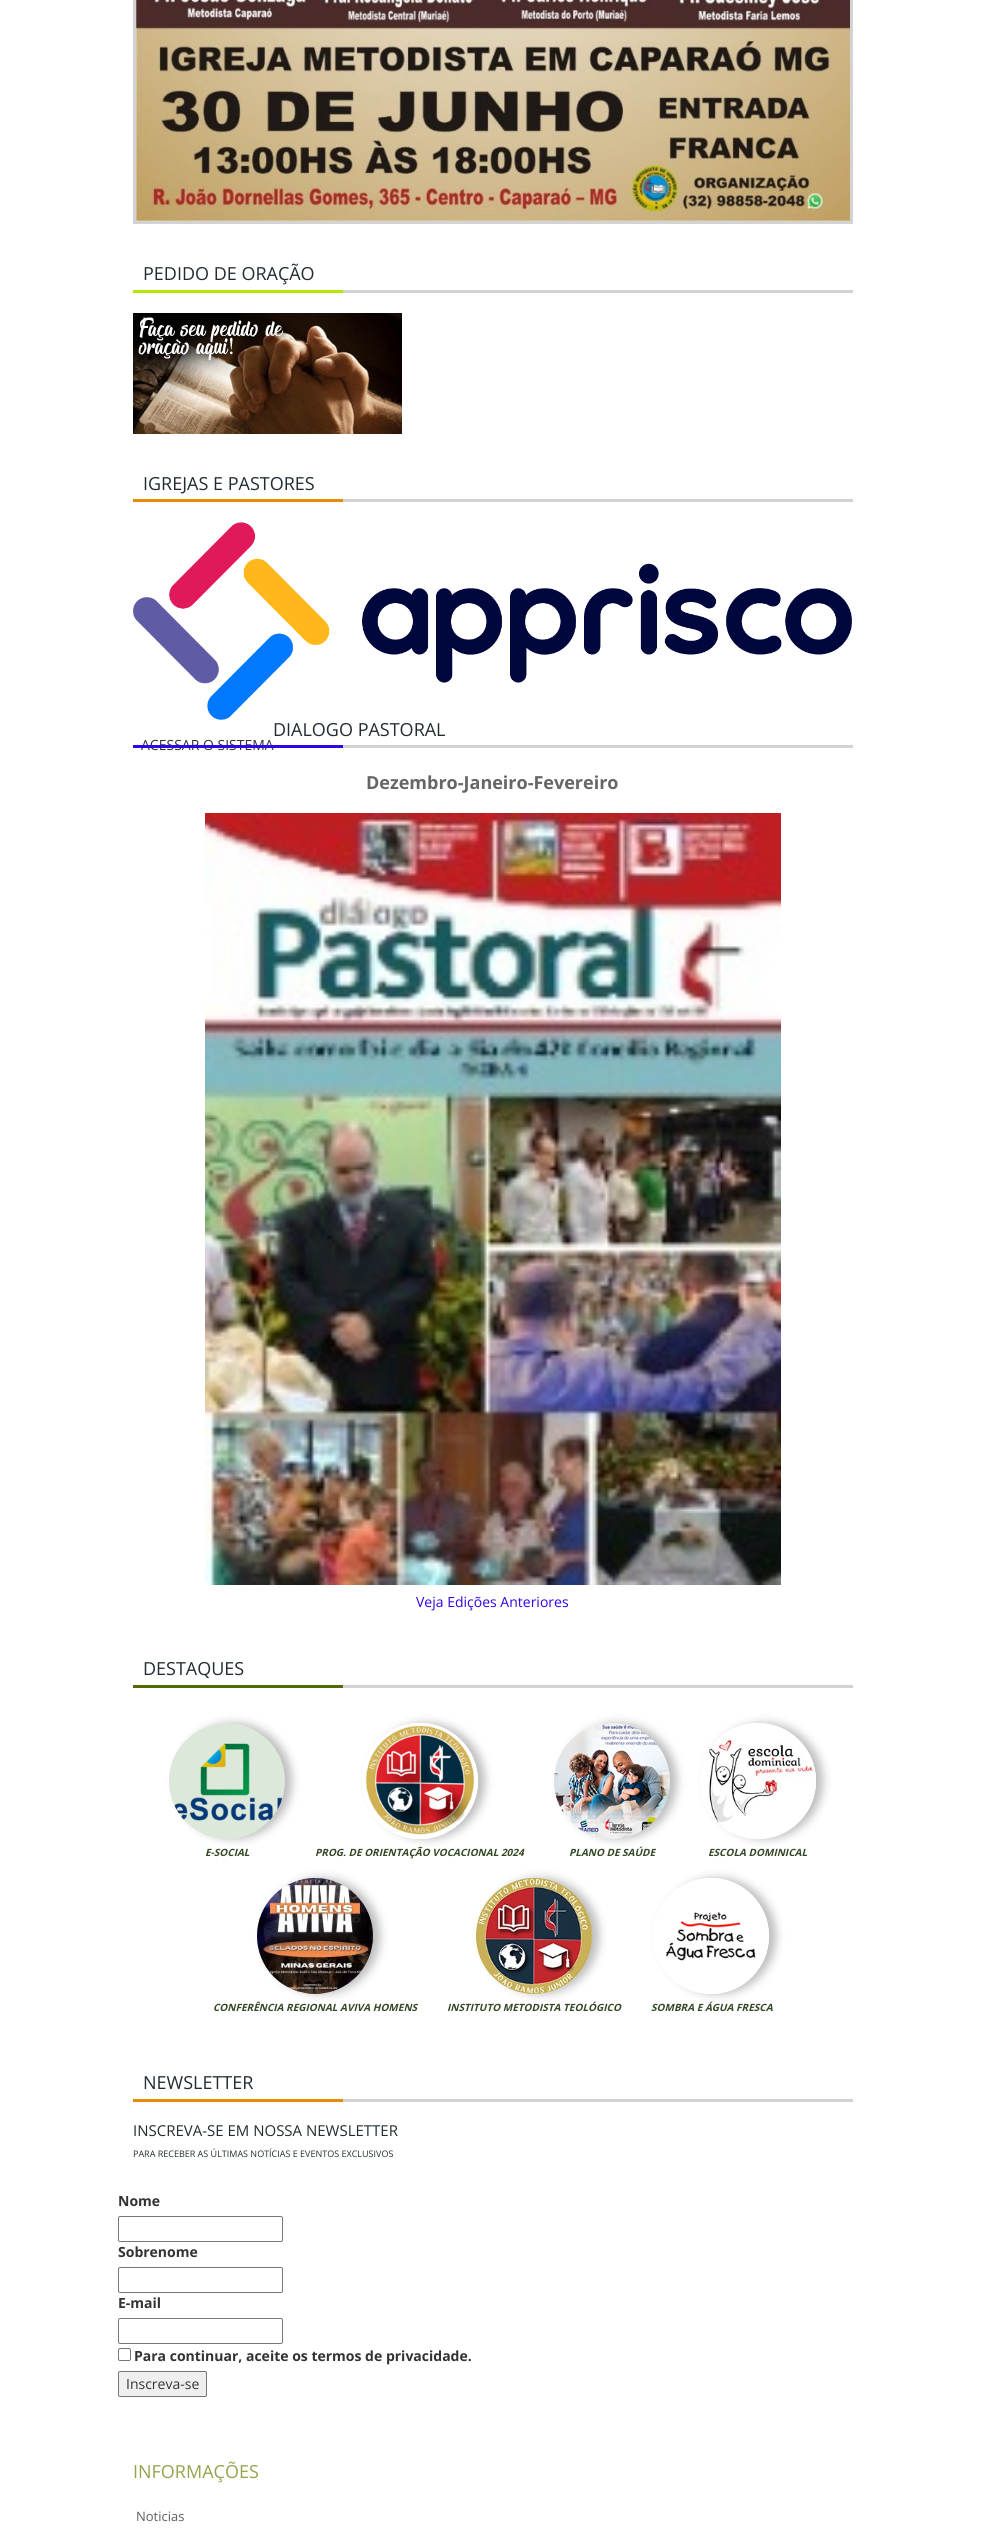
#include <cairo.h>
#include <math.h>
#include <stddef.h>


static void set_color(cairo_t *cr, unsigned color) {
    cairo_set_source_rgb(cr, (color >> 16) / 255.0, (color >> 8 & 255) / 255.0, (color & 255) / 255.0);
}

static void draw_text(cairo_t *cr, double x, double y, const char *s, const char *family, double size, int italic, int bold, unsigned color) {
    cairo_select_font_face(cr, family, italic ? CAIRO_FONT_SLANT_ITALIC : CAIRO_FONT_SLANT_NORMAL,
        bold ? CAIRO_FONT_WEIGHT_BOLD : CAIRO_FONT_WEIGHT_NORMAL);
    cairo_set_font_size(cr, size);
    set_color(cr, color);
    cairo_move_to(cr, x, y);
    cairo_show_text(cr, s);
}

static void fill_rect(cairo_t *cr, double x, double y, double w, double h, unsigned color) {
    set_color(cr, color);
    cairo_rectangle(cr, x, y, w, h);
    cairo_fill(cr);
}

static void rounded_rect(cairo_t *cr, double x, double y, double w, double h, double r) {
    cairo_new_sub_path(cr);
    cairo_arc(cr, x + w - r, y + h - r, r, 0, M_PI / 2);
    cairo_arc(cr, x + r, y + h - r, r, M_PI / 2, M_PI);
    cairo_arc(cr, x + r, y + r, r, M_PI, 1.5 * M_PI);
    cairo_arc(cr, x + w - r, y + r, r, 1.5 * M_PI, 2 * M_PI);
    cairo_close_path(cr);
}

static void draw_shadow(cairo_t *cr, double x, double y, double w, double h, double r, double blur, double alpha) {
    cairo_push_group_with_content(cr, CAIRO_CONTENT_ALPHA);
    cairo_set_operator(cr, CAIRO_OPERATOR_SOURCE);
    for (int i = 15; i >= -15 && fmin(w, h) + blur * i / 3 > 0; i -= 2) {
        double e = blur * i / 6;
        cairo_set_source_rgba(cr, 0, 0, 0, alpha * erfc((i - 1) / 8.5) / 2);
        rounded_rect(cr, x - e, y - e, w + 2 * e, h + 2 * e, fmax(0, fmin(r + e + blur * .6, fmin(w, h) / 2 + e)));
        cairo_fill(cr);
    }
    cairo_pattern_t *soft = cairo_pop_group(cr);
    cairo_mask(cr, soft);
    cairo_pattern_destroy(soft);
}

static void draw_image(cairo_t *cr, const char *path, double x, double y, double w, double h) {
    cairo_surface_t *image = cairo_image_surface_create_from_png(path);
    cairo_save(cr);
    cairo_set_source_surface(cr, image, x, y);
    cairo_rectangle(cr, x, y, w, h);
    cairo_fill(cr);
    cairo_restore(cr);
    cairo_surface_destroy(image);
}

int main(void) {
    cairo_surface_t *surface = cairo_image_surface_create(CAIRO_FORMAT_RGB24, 985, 2541);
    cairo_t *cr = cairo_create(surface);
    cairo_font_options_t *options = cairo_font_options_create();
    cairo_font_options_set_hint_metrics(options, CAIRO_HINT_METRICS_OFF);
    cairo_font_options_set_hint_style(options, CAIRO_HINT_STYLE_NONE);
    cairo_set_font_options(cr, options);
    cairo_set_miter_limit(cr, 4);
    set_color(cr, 0xFFFFFF);
    cairo_paint(cr);
    cairo_rectangle(cr, 134.5, -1.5, 717, 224);
    set_color(cr, 0xD3D3D3);
    cairo_set_line_width(cr, 3);
    cairo_stroke(cr);
    draw_image(cr, "assets/img1.png", 136, 0, 714, 221);
    fill_rect(cr, 343, 290, 510, 3, 0xD3D3D3);
    draw_text(cr, 143, 280, "PEDIDO DE ORAÇÃO", "Open Sans", 18, 0, 0, 0x222C33);
    fill_rect(cr, 133, 290, 210, 3, 0xB5E704);
    draw_image(cr, "assets/img2.png", 133, 313, 269, 121);
    fill_rect(cr, 343, 499, 510, 3, 0xD3D3D3);
    draw_text(cr, 143, 490, "IGREJAS E PASTORES", "Open Sans", 18, 0, 0, 0x222C33);
    fill_rect(cr, 133, 499, 210, 3, 0xE78A04);
    fill_rect(cr, 343, 745, 510, 3, 0xD3D3D3);
    draw_text(cr, 273, 736, "DIALOGO PASTORAL", "Open Sans", 18, 0, 0, 0x222C33);
    draw_text(cr, 141, 750, "ACESSAR O SISTEMA", "Open Sans", 14, 0, 0, 0x333333);
    fill_rect(cr, 133, 745, 210, 3, 0x2F04E7);
    draw_image(cr, "assets/img3.png", 133, 522, 719, 198);
    draw_text(cr, 366, 789, "Dezembro-Janeiro-Fevereiro", "Open Sans", 18, 0, 1, 0x666666);
    draw_image(cr, "assets/img4.png", 205, 813, 576, 772);
    draw_text(cr, 416, 1607, "Veja Edições Anteriores", "Open Sans", 14, 0, 0, 0x2F04E7);
    fill_rect(cr, 343, 1685, 510, 3, 0xD3D3D3);
    draw_text(cr, 143, 1675, "DESTAQUES", "Open Sans", 18, 0, 0, 0x222C33);
    fill_rect(cr, 133, 1685, 210, 3, 0x526802);
    set_color(cr, 0x000000);
    draw_shadow(cr, 176, 1723, 116, 116, 58, 4.5, 0.26);
    draw_image(cr, "assets/img5.png", 169, 1723, 116, 116);
    draw_text(cr, 205, 1856, "E-SOCIAL", "Open Sans", 10, 1, 1, 0x354826);
    cairo_save(cr);
    cairo_set_fill_rule(cr, CAIRO_FILL_RULE_EVEN_ODD);
    cairo_new_path(cr);
    cairo_move_to(cr, 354, 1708);
    cairo_line_to(cr, 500, 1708);
    cairo_line_to(cr, 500, 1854);
    cairo_line_to(cr, 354, 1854);
    cairo_close_path(cr);
    cairo_move_to(cr, 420, 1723);
    cairo_curve_to(cr, 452, 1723, 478, 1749, 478, 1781);
    cairo_curve_to(cr, 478, 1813, 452, 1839, 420, 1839);
    cairo_curve_to(cr, 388, 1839, 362, 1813, 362, 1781);
    cairo_curve_to(cr, 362, 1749, 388, 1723, 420, 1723);
    cairo_close_path(cr);
    cairo_clip(cr);
    set_color(cr, 0x000000);
    draw_shadow(cr, 369, 1723, 116, 116, 58, 4.5, 0.26);
    cairo_restore(cr);
    draw_image(cr, "assets/img6.png", 365, 1723, 113, 116);
    draw_text(cr, 315, 1856, "PROG. DE ORIENTAÇÃO VOCACIONAL 2024", "Open Sans", 10, 1, 1, 0x354826);
    set_color(cr, 0x000000);
    draw_shadow(cr, 561, 1723, 116, 116, 58, 4.5, 0.26);
    draw_image(cr, "assets/img7.png", 554, 1723, 116, 116);
    draw_text(cr, 569, 1856, "PLANO DE SAÚDE", "Open Sans", 10, 1, 1, 0x354826);
    cairo_save(cr);
    cairo_set_fill_rule(cr, CAIRO_FILL_RULE_EVEN_ODD);
    cairo_new_path(cr);
    cairo_move_to(cr, 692, 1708);
    cairo_line_to(cr, 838, 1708);
    cairo_line_to(cr, 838, 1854);
    cairo_line_to(cr, 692, 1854);
    cairo_close_path(cr);
    cairo_move_to(cr, 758, 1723);
    cairo_curve_to(cr, 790, 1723, 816, 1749, 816, 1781);
    cairo_curve_to(cr, 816, 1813, 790, 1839, 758, 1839);
    cairo_curve_to(cr, 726, 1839, 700, 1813, 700, 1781);
    cairo_curve_to(cr, 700, 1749, 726, 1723, 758, 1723);
    cairo_close_path(cr);
    cairo_clip(cr);
    set_color(cr, 0x000000);
    draw_shadow(cr, 707, 1723, 116, 116, 58, 4.5, 0.26);
    cairo_restore(cr);
    draw_image(cr, "assets/img8.png", 707, 1723, 109, 116);
    draw_text(cr, 708, 1856, "ESCOLA DOMINICAL", "Open Sans", 10, 1, 1, 0x354826);
    set_color(cr, 0x000000);
    draw_shadow(cr, 264, 1878, 116, 116, 58, 4.5, 0.26);
    draw_image(cr, "assets/img9.png", 257, 1878, 116, 116);
    draw_text(cr, 213, 2011, "CONFERÊNCIA REGIONAL AVIVA HOMENS", "Open Sans", 10, 1, 1, 0x354826);
    set_color(cr, 0x000000);
    draw_shadow(cr, 483, 1878, 116, 116, 58, 4.5, 0.26);
    draw_image(cr, "assets/img10.png", 476, 1878, 116, 116);
    draw_text(cr, 447, 2011, "INSTITUTO METODISTA TEOLÓGICO", "Open Sans", 10, 1, 1, 0x354826);
    cairo_save(cr);
    cairo_set_fill_rule(cr, CAIRO_FILL_RULE_EVEN_ODD);
    cairo_new_path(cr);
    cairo_move_to(cr, 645, 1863);
    cairo_line_to(cr, 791, 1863);
    cairo_line_to(cr, 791, 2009);
    cairo_line_to(cr, 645, 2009);
    cairo_close_path(cr);
    cairo_move_to(cr, 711, 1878);
    cairo_curve_to(cr, 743, 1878, 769, 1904, 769, 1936);
    cairo_curve_to(cr, 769, 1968, 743, 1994, 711, 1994);
    cairo_curve_to(cr, 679, 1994, 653, 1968, 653, 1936);
    cairo_curve_to(cr, 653, 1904, 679, 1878, 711, 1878);
    cairo_close_path(cr);
    cairo_clip(cr);
    set_color(cr, 0x000000);
    draw_shadow(cr, 660, 1878, 116, 116, 58, 4.5, 0.26);
    cairo_restore(cr);
    draw_image(cr, "assets/img11.png", 666, 1878, 103, 116);
    draw_text(cr, 651, 2011, "SOMBRA E ÁGUA FRESCA", "Open Sans", 10, 1, 1, 0x354826);
    fill_rect(cr, 343, 2099, 510, 3, 0xD3D3D3);
    draw_text(cr, 143, 2089, "NEWSLETTER", "Open Sans", 18, 0, 0, 0x222C33);
    fill_rect(cr, 133, 2099, 210, 3, 0xE78A04);
    draw_text(cr, 133, 2136, "INSCREVA-SE EM NOSSA NEWSLETTER", "Open Sans", 15, 0, 0, 0x222C33);
    draw_text(cr, 133, 2157, "PARA RECEBER AS ÚLTIMAS NOTÍCIAS E EVENTOS EXCLUSIVOS", "Open Sans", 9, 0, 0, 0x222C33);
    draw_text(cr, 118, 2206, "Nome", "Open Sans", 14, 0, 1, 0x333333);
    rounded_rect(cr, 118.5, 2216.5, 164, 25, 1.5);
    set_color(cr, 0x767676);
    cairo_set_line_width(cr, 1);
    cairo_stroke(cr);
    draw_text(cr, 118, 2257, "Sobrenome", "Open Sans", 14, 0, 1, 0x333333);
    rounded_rect(cr, 118.5, 2267.5, 164, 25, 1.5);
    set_color(cr, 0x767676);
    cairo_stroke(cr);
    draw_text(cr, 118, 2308, "E-mail", "Open Sans", 14, 0, 1, 0x333333);
    rounded_rect(cr, 118.5, 2318.5, 164, 25, 1.5);
    set_color(cr, 0x767676);
    cairo_stroke(cr);
    rounded_rect(cr, 118.5, 2348.5, 12, 12, 1.5);
    cairo_stroke(cr);
    draw_text(cr, 134, 2361, "Para continuar, aceite os termos de privacidade.", "Open Sans", 14, 0, 1, 0x333333);
    set_color(cr, 0xEFEFEF);
    rounded_rect(cr, 118.5, 2371.5, 88, 25, 1.5);
    cairo_fill_preserve(cr);
    set_color(cr, 0x767676);
    cairo_stroke(cr);
    draw_text(cr, 126, 2389, "Inscreva-se", "Open Sans", 14, 0, 0, 0x333333);
    draw_text(cr, 133, 2478, "INFORMAÇÕES", "Open Sans", 18, 0, 0, 0x92A54D);
    draw_text(cr, 136, 2521, "Noticias", "Open Sans", 13, 0, 0, 0x606060);
    cairo_surface_write_to_png(surface, "output.png");
    cairo_font_options_destroy(options);
    cairo_destroy(cr);
    cairo_surface_destroy(surface);
    return 0;
}
